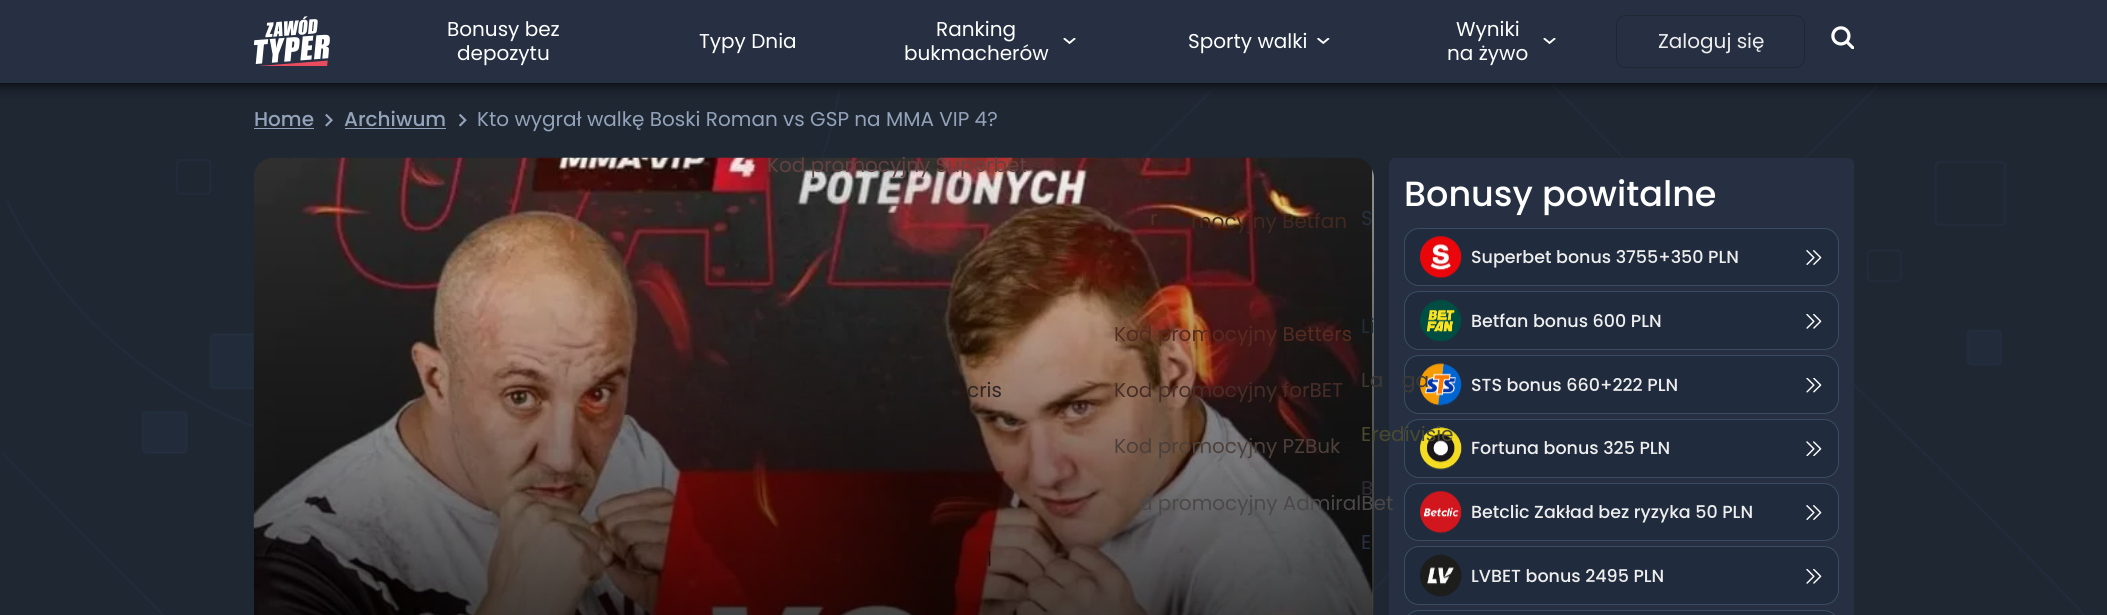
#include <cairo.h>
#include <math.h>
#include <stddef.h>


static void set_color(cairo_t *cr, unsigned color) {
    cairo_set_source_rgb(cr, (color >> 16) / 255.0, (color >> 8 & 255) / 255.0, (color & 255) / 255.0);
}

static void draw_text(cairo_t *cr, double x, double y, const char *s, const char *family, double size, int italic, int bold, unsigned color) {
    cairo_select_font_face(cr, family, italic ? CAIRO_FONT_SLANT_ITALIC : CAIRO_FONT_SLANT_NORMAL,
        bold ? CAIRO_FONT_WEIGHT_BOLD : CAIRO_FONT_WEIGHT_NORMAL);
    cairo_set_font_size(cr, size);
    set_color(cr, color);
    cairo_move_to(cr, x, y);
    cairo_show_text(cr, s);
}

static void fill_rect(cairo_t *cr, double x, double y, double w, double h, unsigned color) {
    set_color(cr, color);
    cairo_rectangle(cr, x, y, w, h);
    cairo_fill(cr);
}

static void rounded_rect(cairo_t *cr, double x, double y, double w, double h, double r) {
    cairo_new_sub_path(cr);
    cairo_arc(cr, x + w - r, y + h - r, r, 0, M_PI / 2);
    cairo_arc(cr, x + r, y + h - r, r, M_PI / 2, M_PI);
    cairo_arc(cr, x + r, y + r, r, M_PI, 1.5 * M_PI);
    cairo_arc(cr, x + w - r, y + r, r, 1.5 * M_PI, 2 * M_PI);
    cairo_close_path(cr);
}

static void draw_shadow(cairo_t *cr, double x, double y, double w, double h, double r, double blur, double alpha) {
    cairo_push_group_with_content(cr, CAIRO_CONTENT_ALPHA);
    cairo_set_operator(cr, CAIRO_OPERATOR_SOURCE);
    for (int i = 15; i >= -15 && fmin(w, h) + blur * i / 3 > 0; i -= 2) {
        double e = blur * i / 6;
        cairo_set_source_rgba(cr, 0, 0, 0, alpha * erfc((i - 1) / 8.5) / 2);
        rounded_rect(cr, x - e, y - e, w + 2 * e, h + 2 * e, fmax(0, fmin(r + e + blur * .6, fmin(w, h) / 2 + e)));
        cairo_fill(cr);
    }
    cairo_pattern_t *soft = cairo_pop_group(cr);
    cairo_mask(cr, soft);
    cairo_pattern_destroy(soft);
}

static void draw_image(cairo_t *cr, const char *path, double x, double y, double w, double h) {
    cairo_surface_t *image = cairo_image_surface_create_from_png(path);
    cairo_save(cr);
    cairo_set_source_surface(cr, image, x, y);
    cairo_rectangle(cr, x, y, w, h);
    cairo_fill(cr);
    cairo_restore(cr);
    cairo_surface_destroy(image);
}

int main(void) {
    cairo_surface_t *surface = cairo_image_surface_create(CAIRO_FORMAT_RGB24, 2107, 615);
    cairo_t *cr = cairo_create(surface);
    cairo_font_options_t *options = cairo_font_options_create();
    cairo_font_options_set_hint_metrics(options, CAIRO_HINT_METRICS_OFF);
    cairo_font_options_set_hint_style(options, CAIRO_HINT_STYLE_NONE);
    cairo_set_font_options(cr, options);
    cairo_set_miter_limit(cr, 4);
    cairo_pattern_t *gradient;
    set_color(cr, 0x1F2733);
    cairo_paint(cr);
    draw_image(cr, "assets/img5.png", 1, 84, 2084, 531);
    set_color(cr, 0x000000);
    draw_shadow(cr, -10, 0, 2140, 83, 0, 7.5, 1);
    fill_rect(cr, 0, 0, 2107, 83, 0x263042);
    draw_image(cr, "assets/img1.png", 254, 16, 76, 50);
    draw_text(cr, 447, 36, "Bonusy bez", "Poppins", 20, 0, 0, 0xFFFFFF);
    draw_text(cr, 457, 60, "depozytu", "Poppins", 20, 0, 0, 0xFFFFFF);
    draw_text(cr, 699, 48, "Typy Dnia", "Poppins", 20, 0, 0, 0xFFFFFF);
    draw_text(cr, 936, 36, "Ranking", "Poppins", 20, 0, 0, 0xFFFFFF);
    draw_text(cr, 904, 60, "bukmacherów", "Poppins", 20, 0, 0, 0xFFFFFF);
    draw_image(cr, "assets/img2.png", 1063, 38, 13, 7);
    draw_image(cr, "assets/img8.png", 253, 157, 1121, 458);
    gradient = cairo_pattern_create_linear(814, 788, 814, 158);
    cairo_pattern_add_color_stop_rgba(gradient, 0, 0, 0, 0, 1);
    cairo_pattern_add_color_stop_rgba(gradient, 1, 0, 0, 0, 0);
    cairo_set_source(cr, gradient);
    cairo_pattern_destroy(gradient);
    cairo_rectangle(cr, 254, 172, 1120, 443);
    cairo_fill(cr);
    draw_text(cr, 767, 172, "Kod promocyjny Superbet", "Poppins", 20, 0, 0, 0x634140);
    draw_text(cr, 1191, 228, "mocyjny Betfan", "Poppins", 20, 0, 0, 0x432820);
    draw_text(cr, 1114, 341, "Kod promocyjny Betters", "Poppins", 20, 0, 0, 0x552B20);
    draw_text(cr, 967, 397, "cris", "Poppins", 20, 0, 0, 0x2F2623);
    draw_text(cr, 1114, 397, "Kod promocyjny forBET", "Poppins", 20, 0, 0, 0x482D26);
    draw_text(cr, 1114, 453, "Kod promocyjny PZBuk", "Poppins", 20, 0, 0, 0x4D403A);
    set_color(cr, 0x263042);
    rounded_rect(cr, 1389, 158, 465, 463, 6);
    cairo_fill(cr);
    draw_text(cr, 1139, 510, "d promocyjny AdmiralBet", "Poppins", 20, 0, 0, 0x4B4849);
    draw_text(cr, 987, 566, "l", "Poppins", 20, 0, 0, 0x2F0704);
    draw_text(cr, 1456, 36, "Wyniki", "Poppins", 20, 0, 0, 0xFFFFFF);
    draw_text(cr, 1447, 60, "na żywo", "Poppins", 20, 0, 0, 0xFFFFFF);
    draw_image(cr, "assets/img2.png", 1543, 38, 13, 7);
    draw_text(cr, 1361, 225, "S", "Poppins", 20, 0, 0, 0x263040);
    draw_text(cr, 1361, 333, "Li", "Poppins", 20, 0, 0, 0x212D38);
    draw_text(cr, 1361, 387, "La", "Poppins", 20, 0, 0, 0x3D3A35);
    set_color(cr, 0x202C3D);
    rounded_rect(cr, 1404.5, 355.5, 434, 58, 14.5);
    cairo_fill_preserve(cr);
    set_color(cr, 0x3A4B64);
    cairo_set_line_width(cr, 1);
    cairo_stroke(cr);
    draw_image(cr, "assets/img13.png", 1420, 363, 42, 43);
    draw_text(cr, 1402, 387, "ga", "Poppins", 20, 0, 0, 0x3D3A35);
    set_color(cr, 0x202C3D);
    rounded_rect(cr, 1404.5, 419.5, 434, 58, 14.5);
    cairo_fill_preserve(cr);
    set_color(cr, 0x3A4B64);
    cairo_stroke(cr);
    draw_image(cr, "assets/img15.png", 1420, 427, 42, 43);
    draw_text(cr, 1361, 441, "Eredivisie", "Poppins", 20, 0, 0, 0x4A4A2F);
    draw_text(cr, 1361, 495, "B", "Poppins", 20, 0, 0, 0x2F2836);
    draw_text(cr, 1361, 549, "E", "Poppins", 20, 0, 0, 0x263040);
    draw_text(cr, 1188, 48, "Sporty walki", "Poppins", 20, 0, 0, 0xFFFFFF);
    draw_image(cr, "assets/img3.png", 1317, 38, 13, 7);
    draw_text(cr, 1150, 225, "r", "Poppins", 20, 0, 0, 0x543224);
    rounded_rect(cr, 1616.5, 15.5, 188, 52, 9.5);
    set_color(cr, 0x1F2733);
    cairo_stroke(cr);
    draw_text(cr, 1658, 48, "Zaloguj się", "Poppins", 20, 0, 0, 0xEEEEEE);
    draw_image(cr, "assets/img4.png", 1831, 26, 23, 23);
    draw_text(cr, 254, 126, "Home", "Poppins Medium", 20, 0, 0, 0x93A3BA);
    fill_rect(cr, 254, 128, 60, 1, 0x93A3BA);
    draw_image(cr, "assets/img6.png", 325, 114, 8, 13);
    draw_text(cr, 344, 126, "Archiwum", "Poppins Medium", 20, 0, 0, 0x93A3BA);
    fill_rect(cr, 345, 128, 101, 1, 0x93A3BA);
    draw_image(cr, "assets/img7.png", 459, 114, 8, 13);
    draw_text(cr, 477, 126, "Kto wygrał walkę Boski Roman vs GSP na MMA VIP 4?", "Poppins", 20, 0, 0, 0x93A3BA);
    draw_text(cr, 1404, 206, "Bonusy powitalne", "Poppins Medium", 35, 0, 0, 0xFFFFFF);
    set_color(cr, 0x202C3D);
    rounded_rect(cr, 1404.5, 228.5, 434, 57, 14.5);
    cairo_fill_preserve(cr);
    set_color(cr, 0x3A4B64);
    cairo_stroke(cr);
    draw_image(cr, "assets/img9.png", 1420, 236, 42, 43);
    draw_text(cr, 1471, 263, "Superbet bonus 3755+350 PLN", "Poppins Medium", 17.5, 0, 0, 0xEEEEEE);
    draw_image(cr, "assets/img10.png", 1806, 250, 16, 15);
    set_color(cr, 0x202C3D);
    rounded_rect(cr, 1404.5, 291.5, 434, 58, 14.5);
    cairo_fill_preserve(cr);
    set_color(cr, 0x3A4B64);
    cairo_stroke(cr);
    draw_image(cr, "assets/img11.png", 1420, 299, 42, 43);
    draw_text(cr, 1471, 327, "Betfan bonus 600 PLN", "Poppins Medium", 17.5, 0, 0, 0xEEEEEE);
    draw_image(cr, "assets/img12.png", 1806, 314, 16, 15);
    draw_text(cr, 1471, 391, "STS bonus 660+222 PLN", "Poppins Medium", 17.5, 0, 0, 0xEEEEEE);
    draw_image(cr, "assets/img14.png", 1806, 378, 16, 15);
    draw_text(cr, 1471, 454, "Fortuna bonus 325 PLN", "Poppins Medium", 17.5, 0, 0, 0xEEEEEE);
    draw_image(cr, "assets/img16.png", 1806, 441, 16, 15);
    set_color(cr, 0x202C3D);
    rounded_rect(cr, 1404.5, 483.5, 434, 57, 14.5);
    cairo_fill_preserve(cr);
    set_color(cr, 0x3A4B64);
    cairo_stroke(cr);
    draw_image(cr, "assets/img17.png", 1420, 491, 42, 43);
    draw_text(cr, 1471, 518, "Betclic Zakład bez ryzyka 50 PLN", "Poppins Medium", 17.5, 0, 0, 0xEEEEEE);
    draw_image(cr, "assets/img10.png", 1806, 505, 16, 15);
    set_color(cr, 0x202C3D);
    rounded_rect(cr, 1404.5, 546.5, 434, 58, 14.5);
    cairo_fill_preserve(cr);
    set_color(cr, 0x3A4B64);
    cairo_stroke(cr);
    draw_image(cr, "assets/img18.png", 1420, 554, 42, 43);
    draw_text(cr, 1471, 582, "LVBET bonus 2495 PLN", "Poppins Medium", 17.5, 0, 0, 0xEEEEEE);
    draw_image(cr, "assets/img12.png", 1806, 569, 16, 15);
    set_color(cr, 0x202C3D);
    rounded_rect(cr, 1404.5, 610.5, 434, 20, 14.5);
    cairo_fill_preserve(cr);
    set_color(cr, 0x3A4B64);
    cairo_stroke(cr);
    cairo_surface_write_to_png(surface, "output.png");
    cairo_font_options_destroy(options);
    cairo_destroy(cr);
    cairo_surface_destroy(surface);
    return 0;
}
